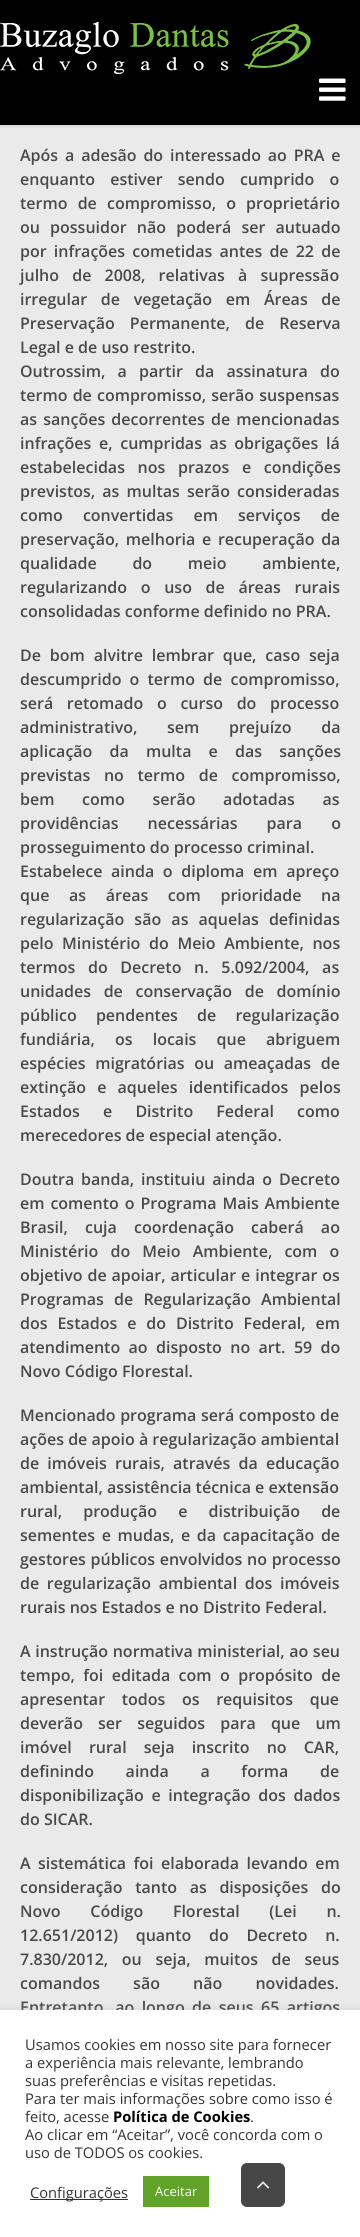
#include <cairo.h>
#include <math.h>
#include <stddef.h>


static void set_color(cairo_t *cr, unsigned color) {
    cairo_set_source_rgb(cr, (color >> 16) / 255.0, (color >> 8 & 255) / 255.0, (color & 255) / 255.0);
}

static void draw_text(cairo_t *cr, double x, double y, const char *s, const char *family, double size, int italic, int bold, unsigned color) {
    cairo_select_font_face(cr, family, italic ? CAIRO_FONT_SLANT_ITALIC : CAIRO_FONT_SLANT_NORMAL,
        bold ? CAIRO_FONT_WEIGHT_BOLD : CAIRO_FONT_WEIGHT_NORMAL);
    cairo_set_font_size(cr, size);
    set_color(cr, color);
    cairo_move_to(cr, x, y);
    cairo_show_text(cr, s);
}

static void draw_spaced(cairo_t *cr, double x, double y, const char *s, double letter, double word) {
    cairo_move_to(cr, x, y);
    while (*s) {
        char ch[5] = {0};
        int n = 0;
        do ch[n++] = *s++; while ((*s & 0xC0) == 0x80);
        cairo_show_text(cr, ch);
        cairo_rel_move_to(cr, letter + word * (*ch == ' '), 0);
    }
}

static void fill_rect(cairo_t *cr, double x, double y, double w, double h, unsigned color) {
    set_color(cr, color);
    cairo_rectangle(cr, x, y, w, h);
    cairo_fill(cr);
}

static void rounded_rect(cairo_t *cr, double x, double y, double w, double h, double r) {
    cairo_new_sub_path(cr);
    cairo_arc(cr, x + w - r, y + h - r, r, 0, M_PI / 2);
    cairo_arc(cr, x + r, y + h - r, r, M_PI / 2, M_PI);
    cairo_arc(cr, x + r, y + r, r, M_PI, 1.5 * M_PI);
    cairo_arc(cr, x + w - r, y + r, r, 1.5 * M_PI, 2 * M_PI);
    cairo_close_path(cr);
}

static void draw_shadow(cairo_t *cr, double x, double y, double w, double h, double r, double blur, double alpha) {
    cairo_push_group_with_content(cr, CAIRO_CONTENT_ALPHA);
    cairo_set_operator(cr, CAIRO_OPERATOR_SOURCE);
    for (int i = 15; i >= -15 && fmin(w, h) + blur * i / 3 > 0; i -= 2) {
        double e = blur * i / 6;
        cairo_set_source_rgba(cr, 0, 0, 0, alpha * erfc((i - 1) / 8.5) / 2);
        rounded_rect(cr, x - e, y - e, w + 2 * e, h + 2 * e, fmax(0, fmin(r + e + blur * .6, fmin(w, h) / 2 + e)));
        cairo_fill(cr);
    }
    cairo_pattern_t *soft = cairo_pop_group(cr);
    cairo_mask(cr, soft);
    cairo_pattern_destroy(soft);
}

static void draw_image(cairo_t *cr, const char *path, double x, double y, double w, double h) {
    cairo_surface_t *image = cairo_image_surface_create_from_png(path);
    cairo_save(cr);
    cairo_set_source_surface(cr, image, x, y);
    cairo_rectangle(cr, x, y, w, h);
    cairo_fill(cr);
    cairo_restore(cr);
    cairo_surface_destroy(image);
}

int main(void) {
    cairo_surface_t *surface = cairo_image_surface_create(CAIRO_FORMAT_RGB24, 360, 2237);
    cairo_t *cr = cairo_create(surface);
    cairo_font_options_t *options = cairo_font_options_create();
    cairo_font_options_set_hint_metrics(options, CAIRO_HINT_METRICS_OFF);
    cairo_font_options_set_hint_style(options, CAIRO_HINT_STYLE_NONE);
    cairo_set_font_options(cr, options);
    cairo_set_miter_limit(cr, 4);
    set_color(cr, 0xEAEAEA);
    cairo_paint(cr);
    set_color(cr, 0x000000);
    draw_shadow(cr, 0, 1, 360, 125, 0, 1.5, 0.12);
    fill_rect(cr, 0, 0, 360, 125, 0x000000);
    draw_image(cr, "assets/img1.png", 0, 20, 311, 54);
    draw_image(cr, "assets/img2.png", 319, 78, 27, 23);
    cairo_select_font_face(cr, "Open Sans SemiBold", CAIRO_FONT_SLANT_NORMAL, CAIRO_FONT_WEIGHT_NORMAL);
    cairo_set_font_size(cr, 16);
    set_color(cr, 0x494949);
    draw_spaced(cr, 20, 161, "Após a adesão do interessado ao PRA e", 0, 2.75);
    draw_spaced(cr, 20, 185, "enquanto estiver sendo cumprido o", 0, 11);
    draw_spaced(cr, 20, 209, "termo de compromisso, o proprietário", 0, 6);
    draw_spaced(cr, 20, 233, "ou possuidor não poderá ser autuado", 0, 6);
    draw_spaced(cr, 20, 257, "por infrações cometidas antes de 22 de", 0, 3);
    draw_spaced(cr, 20, 281, "julho de 2008, relativas à supressão", 0, 9);
    draw_spaced(cr, 20, 305, "irregular de vegetação em Áreas de", 0, 9.5);
    draw_spaced(cr, 20, 329, "Preservação Permanente, de Reserva", 0, 11);
    draw_text(cr, 20, 353, "Legal e de uso restrito.", "Open Sans SemiBold", 16, 0, 0, 0x494949);
    draw_spaced(cr, 20, 377, "Outrossim, a partir da assinatura do", 0, 8);
    draw_spaced(cr, 20, 401, "termo de compromisso, serão suspensas", 0, 1);
    draw_spaced(cr, 20, 425, "as sanções decorrentes de mencionadas", 0, 2);
    draw_spaced(cr, 20, 449, "infrações e, cumpridas as obrigações lá", 0, 3.5);
    draw_spaced(cr, 20, 473, "estabelecidas nos prazos e condições", 0, 8.5);
    draw_spaced(cr, 20, 497, "previstos, as multas serão consideradas", 0, 3);
    draw_spaced(cr, 20, 521, "como convertidas em serviços de", 0, 16);
    draw_spaced(cr, 20, 545, "preservação, melhoria e recuperação da", 0, 2.5);
    draw_spaced(cr, 20, 569, "qualidade do meio ambiente,", 0, 31.5);
    draw_spaced(cr, 20, 593, "regularizando o uso de áreas rurais", 0, 9.5);
    draw_text(cr, 20, 617, "consolidadas conforme definido no PRA.", "Open Sans SemiBold", 16, 0, 0, 0x494949);
    draw_spaced(cr, 20, 661, "De bom alvitre lembrar que, caso seja", 0, 4.75);
    draw_spaced(cr, 20, 685, "descumprido o termo de compromisso,", 0, 4);
    draw_spaced(cr, 20, 709, "será retomado o curso do processo", 0, 9.5);
    draw_spaced(cr, 20, 733, "administrativo, sem prejuízo da", 0, 25.5);
    draw_spaced(cr, 20, 757, "aplicação da multa e das sanções", 0, 13);
    draw_spaced(cr, 20, 781, "previstas no termo de compromisso,", 0, 9.5);
    draw_spaced(cr, 20, 805, "bem como serão adotadas as", 0, 23.5);
    draw_spaced(cr, 20, 829, "providências necessárias para o", 0, 25);
    draw_text(cr, 20, 853, "prosseguimento do processo criminal.", "Open Sans SemiBold", 16, 0, 0, 0x494949);
    draw_spaced(cr, 20, 877, "Estabelece ainda o diploma em apreço", 0, 4.5);
    draw_spaced(cr, 20, 901, "que as áreas com prioridade na", 0, 15.5);
    draw_spaced(cr, 20, 925, "regularização são as aquelas definidas", 0, 6);
    draw_spaced(cr, 20, 949, "pelo Ministério do Meio Ambiente, nos", 0, 4.5);
    draw_spaced(cr, 20, 973, "termos do Decreto n. 5.092/2004, as", 0, 8.5);
    draw_spaced(cr, 20, 997, "unidades de conservação de domínio", 0, 8.5);
    draw_spaced(cr, 20, 1021, "público pendentes de regularização", 0, 15);
    draw_spaced(cr, 20, 1045, "fundiária, os locais que abriguem", 0, 16);
    draw_spaced(cr, 20, 1069, "espécies migratórias ou ameaçadas de", 0, 5.5);
    draw_spaced(cr, 20, 1093, "extinção e aqueles identificados pelos", 0, 7);
    draw_spaced(cr, 20, 1117, "Estados e Distrito Federal como", 0, 19);
    draw_text(cr, 20, 1141, "merecedores de especial atenção.", "Open Sans SemiBold", 16, 0, 0, 0x494949);
    draw_spaced(cr, 20, 1185, "Doutra banda, instituiu ainda o Decreto", 0, 2.75);
    draw_spaced(cr, 20, 1209, "em comento o Programa Mais Ambiente", 0, 1.75);
    draw_spaced(cr, 20, 1233, "Brasil, cuja coordenação caberá ao", 0, 13);
    draw_spaced(cr, 20, 1257, "Ministério do Meio Ambiente, com o", 0, 8);
    draw_spaced(cr, 20, 1281, "objetivo de apoiar, articular e integrar os", 0, 0.75);
    draw_spaced(cr, 20, 1305, "Programas de Regularização Ambiental", 0, 6);
    draw_spaced(cr, 20, 1329, "dos Estados e do Distrito Federal, em", 0, 5.75);
    draw_spaced(cr, 20, 1353, "atendimento ao disposto no art. 59 do", 0, 4.25);
    draw_text(cr, 20, 1377, "Novo Código Florestal.", "Open Sans SemiBold", 16, 0, 0, 0x494949);
    draw_spaced(cr, 20, 1421, "Mencionado programa será composto de", 0, 0.5);
    draw_text(cr, 20, 1445, "ações de apoio à regularização ambiental", "Open Sans SemiBold", 16, 0, 0, 0x494949);
    draw_spaced(cr, 20, 1469, "de imóveis rurais, através da educação", 0, 4);
    draw_text(cr, 20, 1493, "ambiental, assistência técnica e extensão", "Open Sans SemiBold", 16, 0, 0, 0x494949);
    draw_spaced(cr, 20, 1517, "rural, produção e distribuição de", 0, 17);
    draw_spaced(cr, 20, 1541, "sementes e mudas, e da capacitação de", 0, 2.5);
    draw_spaced(cr, 20, 1565, "gestores públicos envolvidos no processo", 0, 0.5);
    draw_spaced(cr, 20, 1589, "de regularização ambiental dos imóveis", 0, 3.5);
    draw_text(cr, 20, 1613, "rurais nos Estados e no Distrito Federal.", "Open Sans SemiBold", 16, 0, 0, 0x494949);
    draw_spaced(cr, 20, 1657, "A instrução normativa ministerial, ao seu", 0, 0.5);
    draw_spaced(cr, 20, 1681, "tempo, foi editada com o propósito de", 0, 4.25);
    draw_spaced(cr, 20, 1705, "apresentar todos os requisitos que", 0, 12.5);
    draw_spaced(cr, 20, 1729, "deverão ser seguidos para que um", 0, 11);
    draw_spaced(cr, 20, 1753, "imóvel rural seja inscrito no CAR,", 0, 13);
    draw_spaced(cr, 20, 1777, "definindo ainda a forma de", 0, 27.5);
    draw_spaced(cr, 20, 1801, "disponibilização e integração dos dados", 0, 3.5);
    draw_text(cr, 20, 1825, "do SICAR.", "Open Sans SemiBold", 16, 0, 0, 0x494949);
    draw_spaced(cr, 20, 1869, "A sistemática foi elaborada levando em", 0, 3.25);
    draw_spaced(cr, 20, 1893, "consideração tanto as disposições do", 0, 8.5);
    draw_spaced(cr, 20, 1917, "Novo Código Florestal (Lei n.", 0, 25.5);
    draw_spaced(cr, 20, 1941, "12.651/2012) quanto do Decreto n.", 0, 13.5);
    draw_spaced(cr, 20, 1965, "7.830/2012, ou seja, muitos de seus", 0, 9.5);
    draw_spaced(cr, 20, 1989, "comandos são não novidades.", 0, 29);
    draw_spaced(cr, 20, 2013, "Entretanto, ao longo de seus 65 artigos", 0, 3.25);
    set_color(cr, 0xACABAB);
    draw_shadow(cr, 0, 2009, 360, 227, 0, 5, 0.3);
    fill_rect(cr, 0, 2010, 360, 227, 0xFFFFFF);
    draw_text(cr, 25, 2050, "Usamos cookies em nosso site para fornecer", "Open Sans", 14.7, 0, 0, 0x333333);
    draw_text(cr, 25, 2068, "a experiência mais relevante, lembrando", "Open Sans", 14.7, 0, 0, 0x333333);
    draw_text(cr, 25, 2086, "suas preferências e visitas repetidas.", "Open Sans", 14.7, 0, 0, 0x333333);
    draw_text(cr, 25, 2104, "Para ter mais informações sobre como isso é", "Open Sans", 14.7, 0, 0, 0x333333);
    draw_text(cr, 25, 2122, "feito, acesse", "Open Sans", 14.7, 0, 0, 0x333333);
    draw_text(cr, 113, 2122, "Política de Cookies", "Open Sans", 14.7, 0, 1, 0x000000);
    draw_text(cr, 250, 2122, ".", "Open Sans", 14.7, 0, 0, 0x333333);
    draw_text(cr, 25, 2140, "Ao clicar em “Aceitar”, você concorda com o", "Open Sans", 14.7, 0, 0, 0x333333);
    draw_text(cr, 25, 2158, "uso de TODOS os cookies.", "Open Sans", 14.7, 0, 0, 0x333333);
    fill_rect(cr, 30, 2199, 98, 1, 0x333333);
    draw_text(cr, 30, 2198, "Configurações", "Open Sans", 14.7, 0, 0, 0x333333);
    fill_rect(cr, 143, 2176, 66, 31, 0x61A229);
    draw_text(cr, 155, 2196, "Aceitar", "Open Sans", 13, 0, 0, 0xFFFFFF);
    set_color(cr, 0x474747);
    rounded_rect(cr, 241, 2163, 44, 44, 6);
    cairo_fill(cr);
    draw_image(cr, "assets/img3.png", 257, 2181, 13, 8);
    cairo_surface_write_to_png(surface, "output.png");
    cairo_font_options_destroy(options);
    cairo_destroy(cr);
    cairo_surface_destroy(surface);
    return 0;
}
